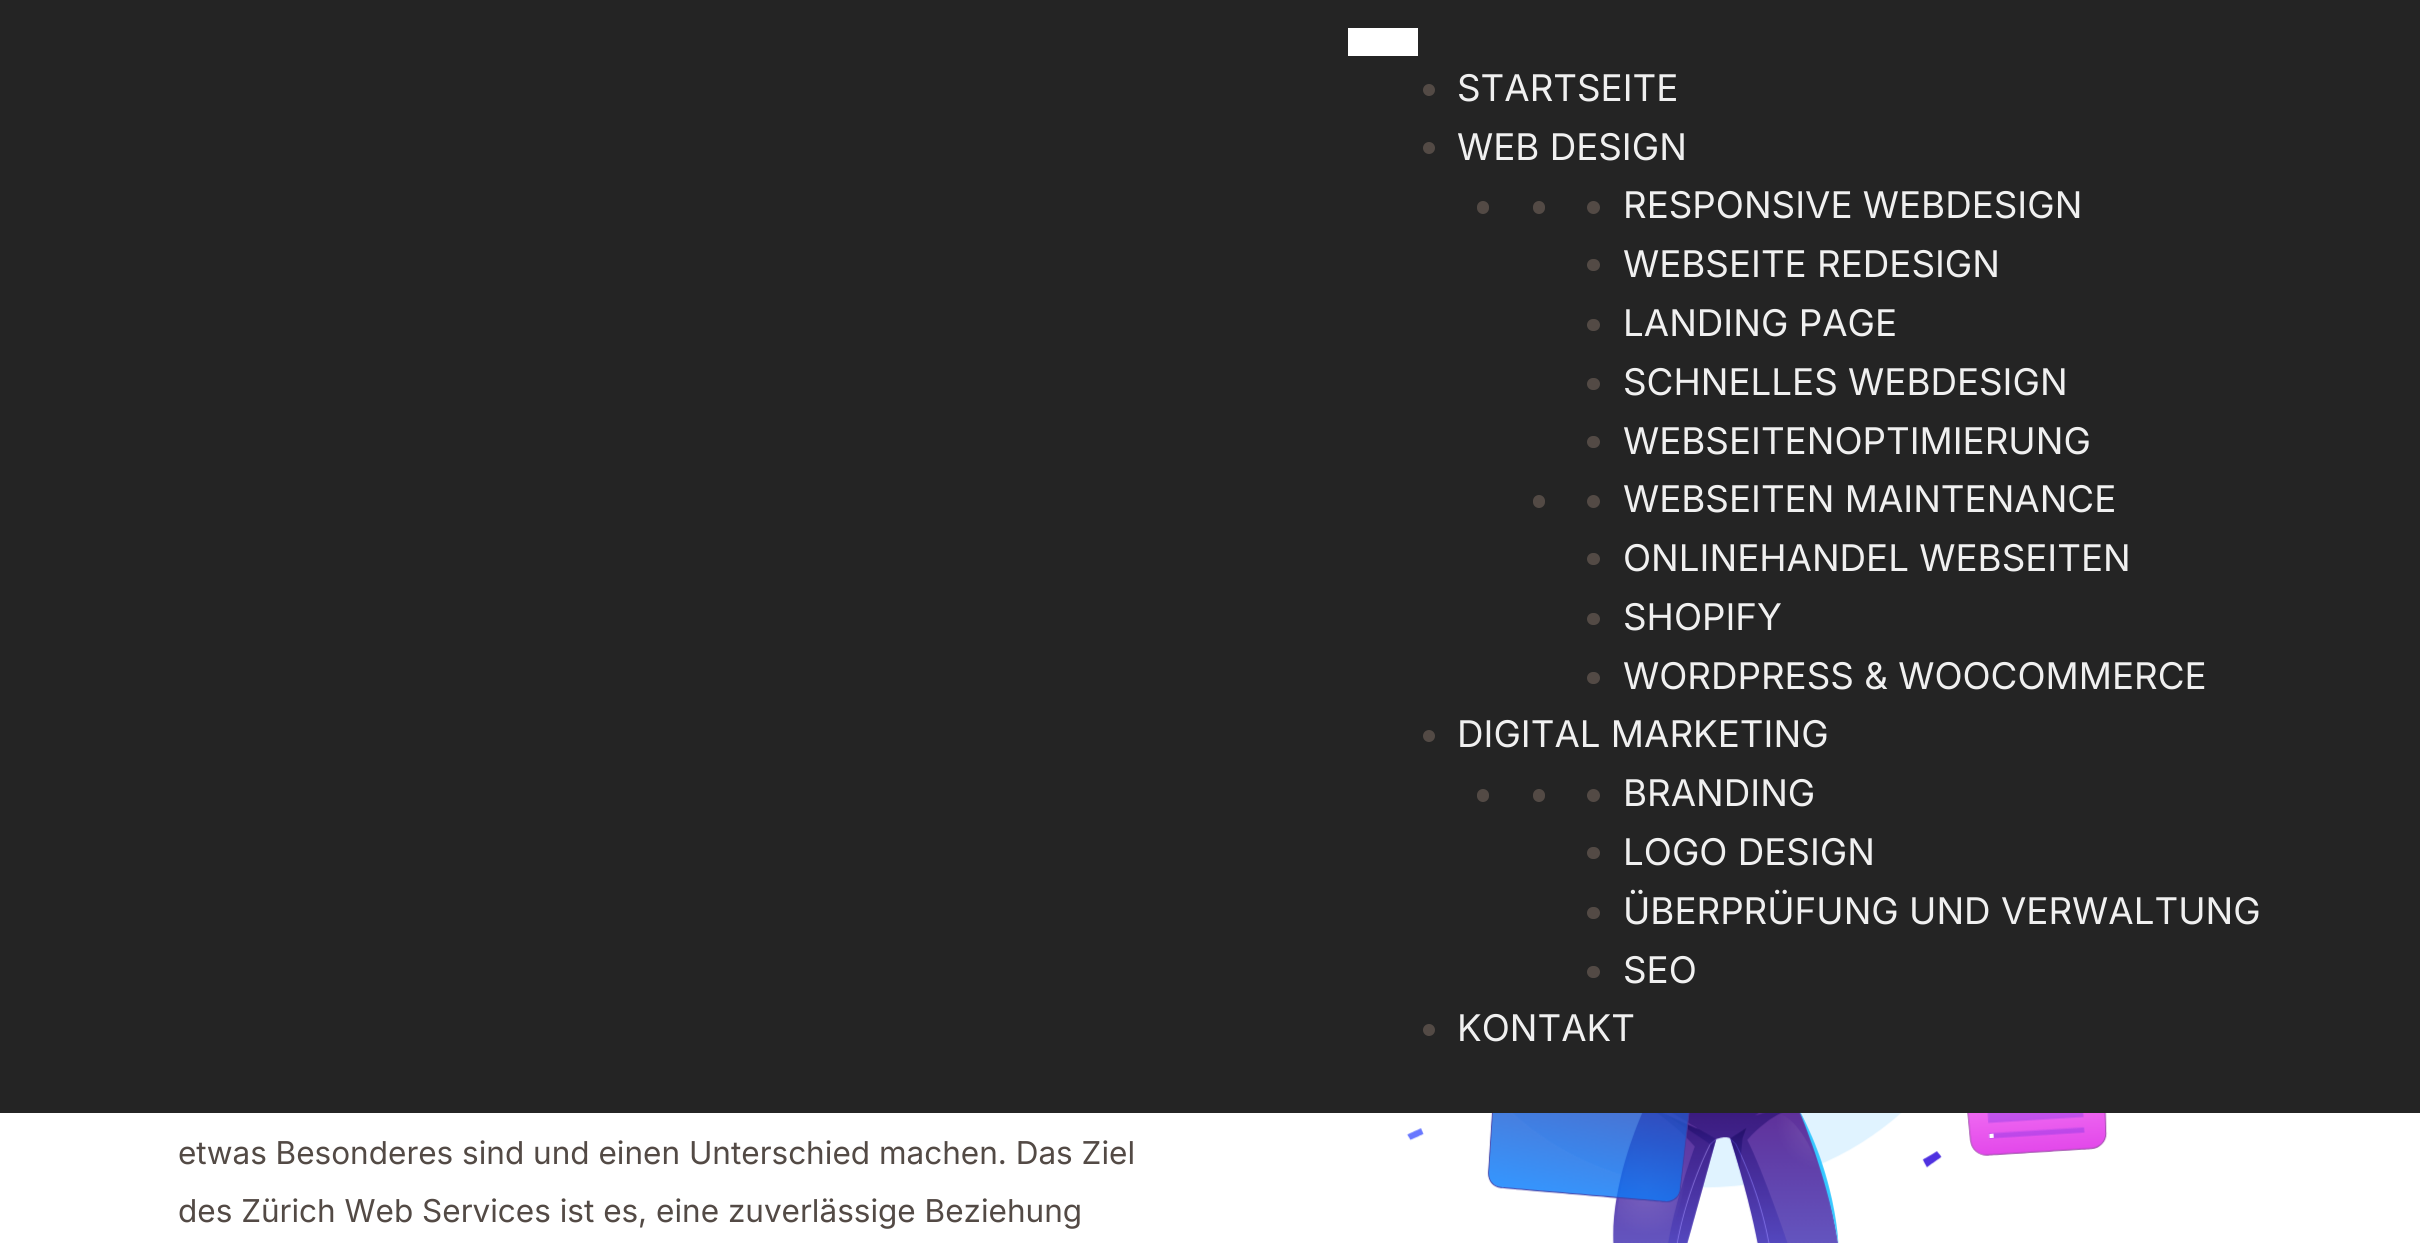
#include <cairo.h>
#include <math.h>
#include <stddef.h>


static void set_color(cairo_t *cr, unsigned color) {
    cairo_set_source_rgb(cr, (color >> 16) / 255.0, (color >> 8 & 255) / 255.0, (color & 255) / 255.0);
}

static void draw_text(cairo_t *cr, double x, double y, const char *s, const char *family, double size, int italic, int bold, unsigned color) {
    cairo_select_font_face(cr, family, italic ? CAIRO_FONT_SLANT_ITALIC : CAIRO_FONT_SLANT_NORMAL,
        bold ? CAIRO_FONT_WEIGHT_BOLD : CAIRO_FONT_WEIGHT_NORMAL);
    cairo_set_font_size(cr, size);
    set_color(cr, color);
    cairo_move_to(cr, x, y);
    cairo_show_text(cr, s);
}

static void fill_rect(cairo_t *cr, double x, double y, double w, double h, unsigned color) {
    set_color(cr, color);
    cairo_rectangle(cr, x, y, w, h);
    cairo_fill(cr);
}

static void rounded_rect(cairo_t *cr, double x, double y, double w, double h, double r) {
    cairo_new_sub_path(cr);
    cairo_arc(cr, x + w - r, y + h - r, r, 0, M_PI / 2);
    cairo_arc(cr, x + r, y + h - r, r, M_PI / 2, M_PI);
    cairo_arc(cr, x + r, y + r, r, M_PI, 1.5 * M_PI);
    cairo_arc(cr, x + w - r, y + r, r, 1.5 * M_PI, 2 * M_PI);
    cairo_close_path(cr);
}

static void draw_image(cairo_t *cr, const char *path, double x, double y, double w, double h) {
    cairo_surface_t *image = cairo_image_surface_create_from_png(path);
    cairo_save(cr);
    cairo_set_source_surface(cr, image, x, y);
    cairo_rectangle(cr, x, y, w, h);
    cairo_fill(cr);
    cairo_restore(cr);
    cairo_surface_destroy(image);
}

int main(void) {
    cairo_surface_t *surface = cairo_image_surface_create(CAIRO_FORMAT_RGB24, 2420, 1251);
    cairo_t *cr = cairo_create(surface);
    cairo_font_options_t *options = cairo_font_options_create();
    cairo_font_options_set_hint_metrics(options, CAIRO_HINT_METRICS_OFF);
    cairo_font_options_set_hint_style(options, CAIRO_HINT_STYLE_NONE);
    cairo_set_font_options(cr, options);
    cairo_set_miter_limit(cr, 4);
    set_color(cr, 0xFFFFFF);
    cairo_paint(cr);
    fill_rect(cr, 0, 0, 2420, 1113, 0x242424);
    fill_rect(cr, 1348, 28, 70, 28, 0xFFFFFF);
    set_color(cr, 0x534A45);
    cairo_arc(cr, 1429, 90, 6, 0, 2 * M_PI);
    cairo_fill(cr);
    draw_text(cr, 1457, 101, "STARTSEITE", "Inter", 36.75, 0, 0, 0xF0F0F0);
    set_color(cr, 0x534A45);
    cairo_new_path(cr);
    cairo_arc(cr, 1429, 148, 6, 0, 2 * M_PI);
    cairo_fill(cr);
    draw_text(cr, 1457, 160, "WEB DESIGN", "Inter", 36.75, 0, 0, 0xF0F0F0);
    set_color(cr, 0x534A45);
    rounded_rect(cr, 1477, 201, 12, 13, 6);
    cairo_fill(cr);
    rounded_rect(cr, 1533, 201, 12, 13, 6);
    cairo_fill(cr);
    cairo_arc(cr, 1593.5, 207.5, 6.5, 0, 2 * M_PI);
    cairo_fill(cr);
    draw_text(cr, 1623, 218, "RESPONSIVE WEBDESIGN", "Inter", 36.75, 0, 0, 0xF0F0F0);
    set_color(cr, 0x534A45);
    rounded_rect(cr, 1587, 259, 13, 12, 6);
    cairo_fill(cr);
    draw_text(cr, 1623, 277, "WEBSEITE REDESIGN", "Inter", 36.75, 0, 0, 0xF0F0F0);
    set_color(cr, 0x534A45);
    rounded_rect(cr, 1587, 319, 13, 12, 6);
    cairo_fill(cr);
    draw_text(cr, 1623, 336, "LANDING PAGE", "Inter", 36.75, 0, 0, 0xF0F0F0);
    set_color(cr, 0x534A45);
    rounded_rect(cr, 1587, 378, 13, 12, 6);
    cairo_fill(cr);
    draw_text(cr, 1623, 395, "SCHNELLES WEBDESIGN", "Inter", 36.75, 0, 0, 0xF0F0F0);
    set_color(cr, 0x534A45);
    rounded_rect(cr, 1587, 436, 13, 12, 6);
    cairo_fill(cr);
    draw_text(cr, 1623, 454, "WEBSEITENOPTIMIERUNG", "Inter", 36.75, 0, 0, 0xF0F0F0);
    set_color(cr, 0x534A45);
    rounded_rect(cr, 1533, 495, 12, 13, 6);
    cairo_fill(cr);
    cairo_arc(cr, 1593.5, 501.5, 6.5, 0, 2 * M_PI);
    cairo_fill(cr);
    draw_text(cr, 1623, 512, "WEBSEITEN MAINTENANCE", "Inter", 36.75, 0, 0, 0xF0F0F0);
    set_color(cr, 0x534A45);
    rounded_rect(cr, 1587, 553, 13, 12, 6);
    cairo_fill(cr);
    draw_text(cr, 1623, 571, "ONLINEHANDEL WEBSEITEN", "Inter", 36.75, 0, 0, 0xF0F0F0);
    set_color(cr, 0x534A45);
    rounded_rect(cr, 1587, 613, 13, 12, 6);
    cairo_fill(cr);
    draw_text(cr, 1623, 630, "SHOPIFY", "Inter", 36.75, 0, 0, 0xF0F0F0);
    set_color(cr, 0x534A45);
    rounded_rect(cr, 1587, 672, 13, 12, 6);
    cairo_fill(cr);
    draw_text(cr, 1623, 689, "WORDPRESS & WOOCOMMERCE", "Inter", 36.75, 0, 0, 0xF0F0F0);
    set_color(cr, 0x534A45);
    cairo_new_path(cr);
    cairo_arc(cr, 1429, 736, 6, 0, 2 * M_PI);
    cairo_fill(cr);
    draw_text(cr, 1457, 747, "DIGITAL MARKETING", "Inter", 36.75, 0, 0, 0xF0F0F0);
    set_color(cr, 0x534A45);
    rounded_rect(cr, 1477, 789, 12, 13, 6);
    cairo_fill(cr);
    rounded_rect(cr, 1533, 789, 12, 13, 6);
    cairo_fill(cr);
    cairo_arc(cr, 1593.5, 795.5, 6.5, 0, 2 * M_PI);
    cairo_fill(cr);
    draw_text(cr, 1623, 806, "BRANDING", "Inter", 36.75, 0, 0, 0xF0F0F0);
    set_color(cr, 0x534A45);
    rounded_rect(cr, 1587, 847, 13, 12, 6);
    cairo_fill(cr);
    draw_text(cr, 1623, 865, "LOGO DESIGN", "Inter", 36.75, 0, 0, 0xF0F0F0);
    set_color(cr, 0x534A45);
    rounded_rect(cr, 1587, 907, 13, 12, 6);
    cairo_fill(cr);
    draw_text(cr, 1623, 924, "ÜBERPRÜFUNG UND VERWALTUNG", "Inter", 36.75, 0, 0, 0xF0F0F0);
    set_color(cr, 0x534A45);
    rounded_rect(cr, 1587, 966, 13, 12, 6);
    cairo_fill(cr);
    draw_text(cr, 1623, 983, "SEO", "Inter", 36.75, 0, 0, 0xF0F0F0);
    set_color(cr, 0x534A45);
    cairo_new_path(cr);
    cairo_arc(cr, 1429, 1030, 6, 0, 2 * M_PI);
    cairo_fill(cr);
    draw_text(cr, 1457, 1041, "KONTAKT", "Inter", 36.75, 0, 0, 0xF0F0F0);
    draw_text(cr, 178, 1164, "etwas Besonderes sind und einen Unterschied machen. Das Ziel", "Inter", 31.5, 0, 0, 0x534A45);
    draw_text(cr, 178, 1222, "des Zürich Web Services ist es, eine zuverlässige Beziehung", "Inter", 31.5, 0, 0, 0x534A45);
    draw_image(cr, "assets/img1.png", 1406, 1113, 702, 130);
    cairo_surface_write_to_png(surface, "output.png");
    cairo_font_options_destroy(options);
    cairo_destroy(cr);
    cairo_surface_destroy(surface);
    return 0;
}
